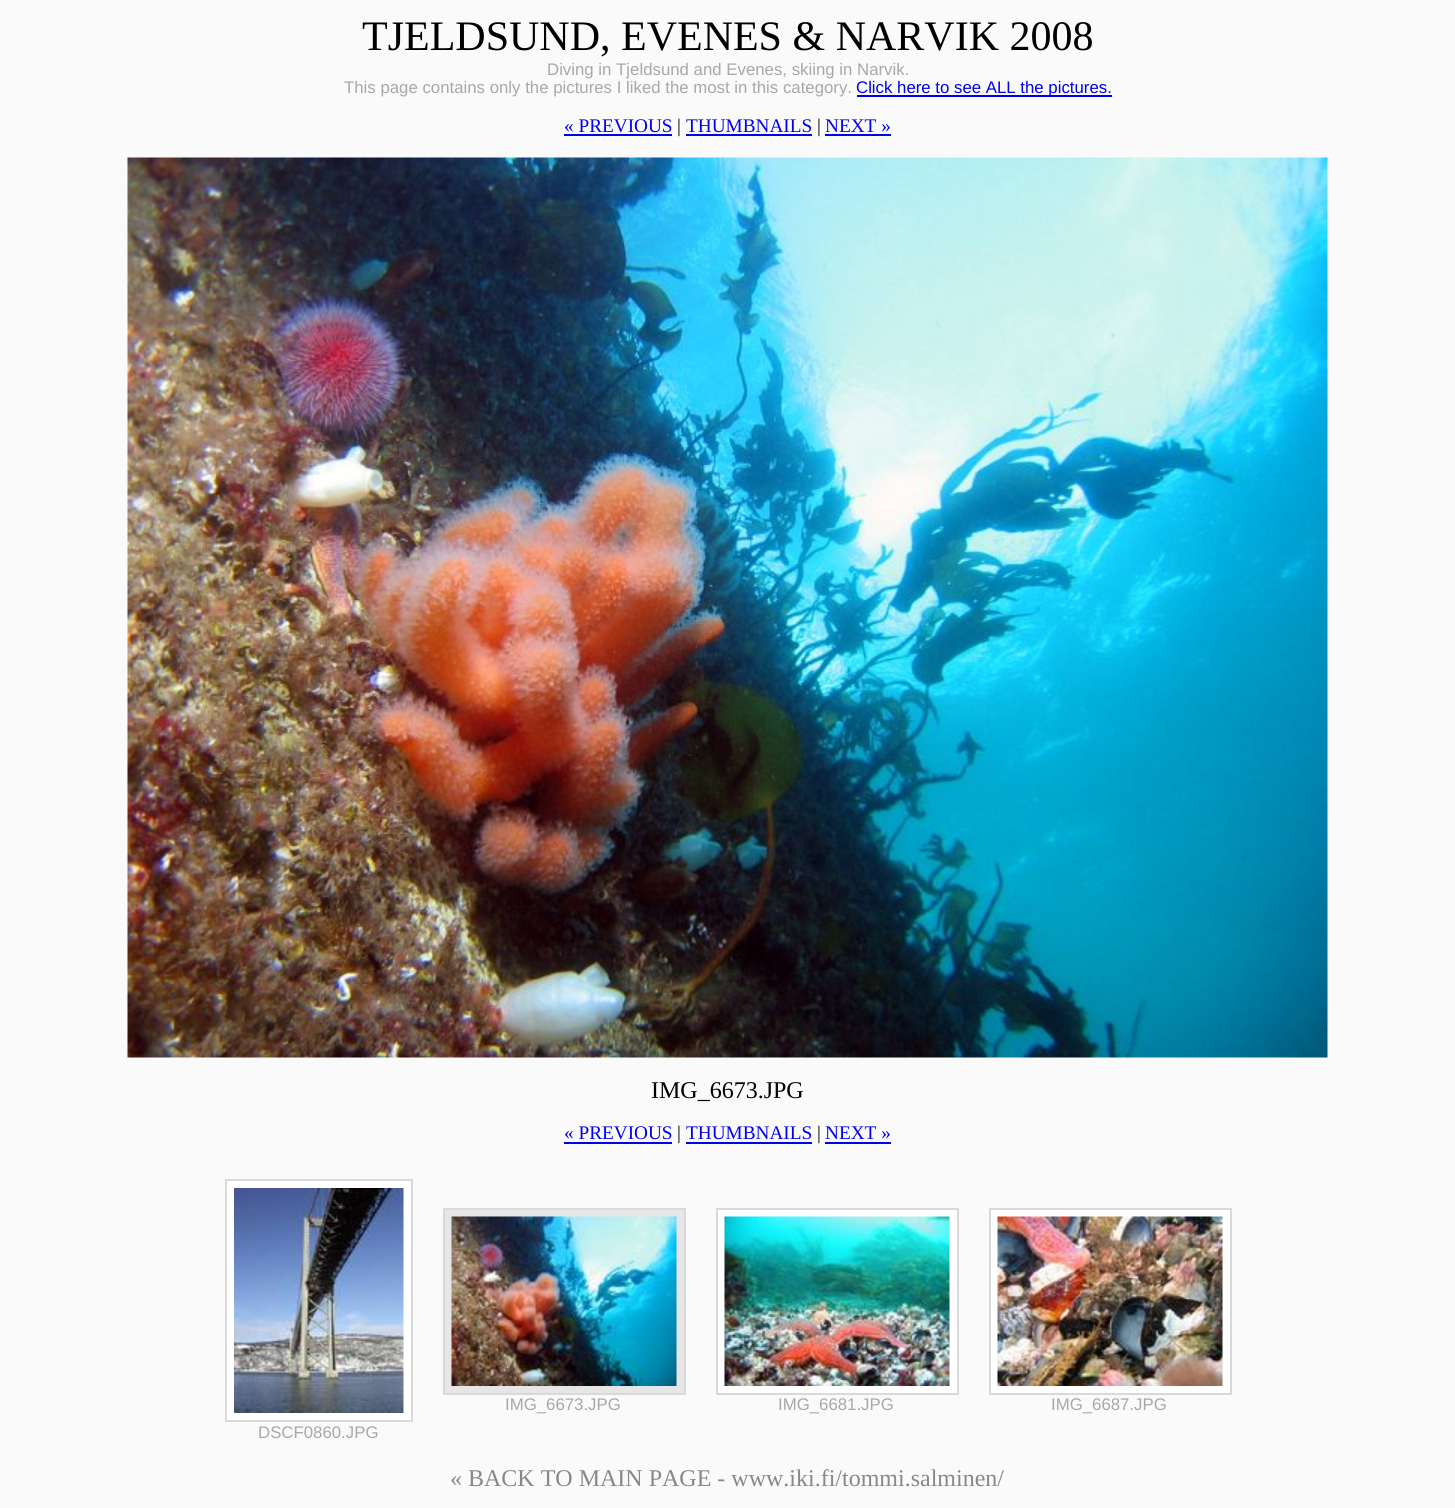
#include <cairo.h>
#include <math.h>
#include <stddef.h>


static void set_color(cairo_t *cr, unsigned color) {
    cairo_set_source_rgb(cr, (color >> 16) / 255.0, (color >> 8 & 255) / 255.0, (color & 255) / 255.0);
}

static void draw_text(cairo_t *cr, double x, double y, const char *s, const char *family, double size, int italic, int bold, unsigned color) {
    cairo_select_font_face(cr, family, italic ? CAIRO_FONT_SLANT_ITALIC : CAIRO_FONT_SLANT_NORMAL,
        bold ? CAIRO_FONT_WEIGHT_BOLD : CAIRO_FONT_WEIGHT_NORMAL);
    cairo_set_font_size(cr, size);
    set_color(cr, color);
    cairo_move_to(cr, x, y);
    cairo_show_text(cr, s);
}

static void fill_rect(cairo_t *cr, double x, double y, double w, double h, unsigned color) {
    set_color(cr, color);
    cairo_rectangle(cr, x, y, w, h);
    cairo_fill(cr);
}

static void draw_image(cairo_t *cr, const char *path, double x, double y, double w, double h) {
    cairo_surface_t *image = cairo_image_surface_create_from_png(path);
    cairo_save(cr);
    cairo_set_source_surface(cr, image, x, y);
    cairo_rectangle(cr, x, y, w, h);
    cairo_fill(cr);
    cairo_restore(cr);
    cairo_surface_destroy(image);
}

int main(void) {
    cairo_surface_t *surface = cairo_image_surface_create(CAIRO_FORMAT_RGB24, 1455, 1508);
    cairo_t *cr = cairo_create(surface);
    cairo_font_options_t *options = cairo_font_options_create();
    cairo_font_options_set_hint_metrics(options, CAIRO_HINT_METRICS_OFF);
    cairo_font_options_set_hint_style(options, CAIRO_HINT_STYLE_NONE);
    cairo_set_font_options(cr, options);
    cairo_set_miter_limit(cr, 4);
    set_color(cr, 0xFAFAFA);
    cairo_paint(cr);
    draw_text(cr, 362, 50, "TJELDSUND, EVENES & NARVIK 2008", "Liberation Serif", 42, 0, 0, 0x000000);
    draw_text(cr, 547, 75, "Diving in Tjeldsund and Evenes, skiing in Narvik.", "Liberation Sans", 16.8, 0, 0, 0xA8A8A8);
    draw_text(cr, 344, 93, "This page contains only the pictures I liked the most in this category.", "Liberation Sans", 16.8, 0, 0, 0xA8A8A8);
    fill_rect(cr, 857, 95, 255, 2, 0x0000EE);
    draw_text(cr, 856, 93, "Click here to see ALL the pictures.", "Liberation Sans", 16.8, 0, 0, 0x0000EE);
    draw_text(cr, 564, 132, "« PREVIOUS", "Liberation Serif", 19.25, 0, 0, 0x0000EE);
    fill_rect(cr, 564, 134, 108, 2, 0x0000EE);
    draw_text(cr, 677, 132, "|", "Liberation Serif", 19.25, 0, 0, 0x000000);
    draw_text(cr, 686, 132, "THUMBNAILS", "Liberation Serif", 19.25, 0, 0, 0x0000EE);
    fill_rect(cr, 686, 134, 126, 2, 0x0000EE);
    draw_text(cr, 817, 132, "|", "Liberation Serif", 19.25, 0, 0, 0x000000);
    draw_text(cr, 825, 132, "NEXT »", "Liberation Serif", 19.25, 0, 0, 0x0000EE);
    fill_rect(cr, 825, 134, 66, 2, 0x0000EE);
    draw_image(cr, "assets/img1.png", 127, 157, 1201, 901);
    draw_text(cr, 651, 1098, "IMG_6673.JPG", "Liberation Serif", 24, 0, 0, 0x000000);
    draw_text(cr, 564, 1139, "« PREVIOUS", "Liberation Serif", 19.25, 0, 0, 0x0000EE);
    fill_rect(cr, 564, 1142, 108, 2, 0x0000EE);
    draw_text(cr, 677, 1139, "|", "Liberation Serif", 19.25, 0, 0, 0x000000);
    draw_text(cr, 686, 1139, "THUMBNAILS", "Liberation Serif", 19.25, 0, 0, 0x0000EE);
    fill_rect(cr, 686, 1142, 126, 2, 0x0000EE);
    draw_text(cr, 817, 1139, "|", "Liberation Serif", 19.25, 0, 0, 0x000000);
    draw_text(cr, 825, 1139, "NEXT »", "Liberation Serif", 19.25, 0, 0, 0x0000EE);
    fill_rect(cr, 825, 1142, 66, 2, 0x0000EE);
    set_color(cr, 0xE6E6E6);
    cairo_rectangle(cr, 444, 1209, 241, 185);
    cairo_fill_preserve(cr);
    set_color(cr, 0xD9D9D9);
    cairo_stroke(cr);
    draw_image(cr, "assets/img2.png", 451, 1216, 226, 170);
    draw_text(cr, 505, 1410, "IMG_6673.JPG", "Liberation Sans", 16.8, 0, 0, 0xA8A8A8);
    set_color(cr, 0xFFFFFF);
    cairo_rectangle(cr, 717, 1209, 241, 185);
    cairo_fill_preserve(cr);
    set_color(cr, 0xD9D9D9);
    cairo_stroke(cr);
    draw_image(cr, "assets/img3.png", 724, 1216, 226, 170);
    draw_text(cr, 778, 1410, "IMG_6681.JPG", "Liberation Sans", 16.8, 0, 0, 0xA8A8A8);
    set_color(cr, 0xFFFFFF);
    cairo_rectangle(cr, 990, 1209, 241, 185);
    cairo_fill_preserve(cr);
    set_color(cr, 0xD9D9D9);
    cairo_stroke(cr);
    draw_image(cr, "assets/img4.png", 997, 1216, 226, 170);
    draw_text(cr, 1051, 1410, "IMG_6687.JPG", "Liberation Sans", 16.8, 0, 0, 0xA8A8A8);
    set_color(cr, 0xFFFFFF);
    cairo_rectangle(cr, 226, 1180, 186, 241);
    cairo_fill_preserve(cr);
    set_color(cr, 0xD9D9D9);
    cairo_stroke(cr);
    draw_image(cr, "assets/img5.png", 234, 1188, 170, 225);
    draw_text(cr, 258, 1438, "DSCF0860.JPG", "Liberation Sans", 16.8, 0, 0, 0xA8A8A8);
    draw_text(cr, 450, 1486, "« BACK TO MAIN PAGE - www.iki.fi/tommi.salminen/", "Liberation Serif", 24, 0, 0, 0x888888);
    cairo_surface_write_to_png(surface, "output.png");
    cairo_font_options_destroy(options);
    cairo_destroy(cr);
    cairo_surface_destroy(surface);
    return 0;
}
